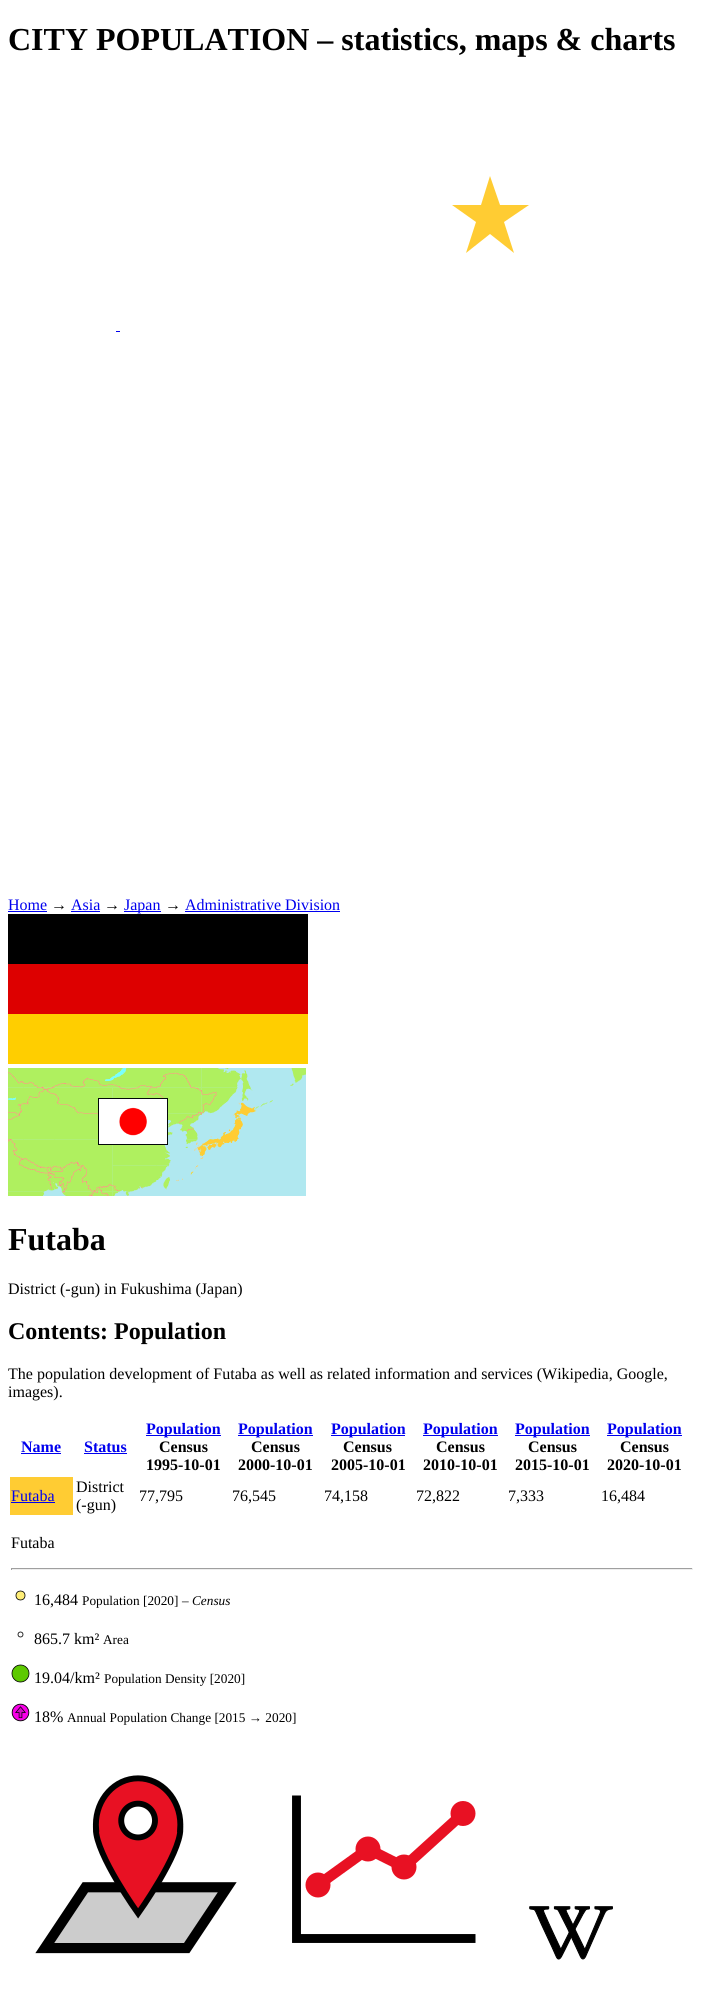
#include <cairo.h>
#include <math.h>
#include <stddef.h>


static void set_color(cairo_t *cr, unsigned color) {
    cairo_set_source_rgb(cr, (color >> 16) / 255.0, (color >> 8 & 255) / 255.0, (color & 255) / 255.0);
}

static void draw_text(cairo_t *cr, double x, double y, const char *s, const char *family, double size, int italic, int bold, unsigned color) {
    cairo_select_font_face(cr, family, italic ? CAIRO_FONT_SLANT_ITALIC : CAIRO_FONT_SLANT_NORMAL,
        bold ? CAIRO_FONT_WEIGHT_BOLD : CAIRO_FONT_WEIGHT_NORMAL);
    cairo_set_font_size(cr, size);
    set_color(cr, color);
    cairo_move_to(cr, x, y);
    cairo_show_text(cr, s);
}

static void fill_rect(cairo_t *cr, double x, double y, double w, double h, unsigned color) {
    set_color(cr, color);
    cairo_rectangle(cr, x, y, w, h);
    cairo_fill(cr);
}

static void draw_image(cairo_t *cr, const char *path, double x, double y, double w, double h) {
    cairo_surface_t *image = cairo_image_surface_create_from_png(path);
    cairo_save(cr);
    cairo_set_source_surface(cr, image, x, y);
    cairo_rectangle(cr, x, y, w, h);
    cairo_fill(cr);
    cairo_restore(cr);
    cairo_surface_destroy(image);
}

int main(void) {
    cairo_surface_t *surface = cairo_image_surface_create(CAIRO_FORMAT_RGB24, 704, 1997);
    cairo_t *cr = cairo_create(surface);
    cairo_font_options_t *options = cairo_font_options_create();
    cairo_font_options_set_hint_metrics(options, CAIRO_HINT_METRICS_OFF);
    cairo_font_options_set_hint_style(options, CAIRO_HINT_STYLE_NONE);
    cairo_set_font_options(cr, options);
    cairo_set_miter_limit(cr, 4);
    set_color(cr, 0xFFFFFF);
    cairo_paint(cr);
    draw_text(cr, 8, 50, "CITY POPULATION – statistics, maps & charts", "Liberation Serif", 32, 0, 1, 0x000000);
    set_color(cr, 0xFFCC33);
    cairo_set_fill_rule(cr, CAIRO_FILL_RULE_EVEN_ODD);
    cairo_new_path(cr);
    cairo_move_to(cr, 490, 234);
    cairo_line_to(cr, 466, 253);
    cairo_line_to(cr, 476, 222);
    cairo_line_to(cr, 452, 205);
    cairo_line_to(cr, 481, 205);
    cairo_line_to(cr, 490, 176);
    cairo_line_to(cr, 500, 205);
    cairo_line_to(cr, 529, 205);
    cairo_line_to(cr, 504, 222);
    cairo_line_to(cr, 514, 253);
    cairo_close_path(cr);
    cairo_fill(cr);
    fill_rect(cr, 116, 331, 4, 1, 0x0000EE);
    draw_text(cr, 8, 910, "Home", "Liberation Serif", 16, 0, 0, 0x0000EE);
    fill_rect(cr, 8, 911, 39, 1, 0x0000EE);
    draw_text(cr, 51, 910, "→", "Liberation Serif", 16, 0, 0, 0x000000);
    draw_text(cr, 71, 910, "Asia", "Liberation Serif", 16, 0, 0, 0x0000EE);
    fill_rect(cr, 71, 911, 29, 1, 0x0000EE);
    draw_text(cr, 104, 910, "→", "Liberation Serif", 16, 0, 0, 0x000000);
    fill_rect(cr, 124, 911, 37, 1, 0x0000EE);
    draw_text(cr, 124, 910, "Japan", "Liberation Serif", 16, 0, 0, 0x0000EE);
    draw_text(cr, 165, 910, "→", "Liberation Serif", 16, 0, 0, 0x000000);
    draw_text(cr, 185, 910, "Administrative Division", "Liberation Serif", 16, 0, 0, 0x0000EE);
    fill_rect(cr, 185, 911, 155, 1, 0x0000EE);
    fill_rect(cr, 8, 914, 300, 50, 0x000000);
    fill_rect(cr, 8, 964, 300, 50, 0xDD0000);
    fill_rect(cr, 8, 1014, 300, 50, 0xFFCE00);
    draw_image(cr, "assets/img1.png", 8, 1068, 298, 128);
    draw_text(cr, 8, 1250, "Futaba", "Liberation Serif", 32, 0, 1, 0x000000);
    draw_text(cr, 8, 1294, "District (-gun) in Fukushima (Japan)", "Liberation Serif", 16, 0, 0, 0x000000);
    draw_text(cr, 8, 1339, "Contents: Population", "Liberation Serif", 24, 0, 1, 0x000000);
    draw_text(cr, 8, 1379, "The population development of Futaba as well as related information and services (Wikipedia, Google,", "Liberation Serif", 16, 0, 0, 0x000000);
    draw_text(cr, 8, 1397, "images).", "Liberation Serif", 16, 0, 0, 0x000000);
    draw_text(cr, 21, 1452, "Name", "Liberation Serif", 16, 0, 1, 0x0000EE);
    fill_rect(cr, 21, 1453, 40, 1, 0x0000EE);
    draw_text(cr, 84, 1452, "Status", "Liberation Serif", 16, 0, 1, 0x0000EE);
    fill_rect(cr, 84, 1453, 43, 1, 0x0000EE);
    fill_rect(cr, 146, 1435, 75, 1, 0x0000EE);
    draw_text(cr, 146, 1434, "Population", "Liberation Serif", 16, 0, 1, 0x0000EE);
    draw_text(cr, 159, 1452, "Census", "Liberation Serif", 16, 0, 1, 0x000000);
    draw_text(cr, 146, 1470, "1995-10-01", "Liberation Serif", 16, 0, 1, 0x000000);
    fill_rect(cr, 238, 1435, 75, 1, 0x0000EE);
    draw_text(cr, 238, 1434, "Population", "Liberation Serif", 16, 0, 1, 0x0000EE);
    draw_text(cr, 251, 1452, "Census", "Liberation Serif", 16, 0, 1, 0x000000);
    draw_text(cr, 238, 1470, "2000-10-01", "Liberation Serif", 16, 0, 1, 0x000000);
    fill_rect(cr, 331, 1435, 74, 1, 0x0000EE);
    draw_text(cr, 331, 1434, "Population", "Liberation Serif", 16, 0, 1, 0x0000EE);
    draw_text(cr, 343, 1452, "Census", "Liberation Serif", 16, 0, 1, 0x000000);
    draw_text(cr, 331, 1470, "2005-10-01", "Liberation Serif", 16, 0, 1, 0x000000);
    fill_rect(cr, 423, 1435, 75, 1, 0x0000EE);
    draw_text(cr, 423, 1434, "Population", "Liberation Serif", 16, 0, 1, 0x0000EE);
    draw_text(cr, 436, 1452, "Census", "Liberation Serif", 16, 0, 1, 0x000000);
    draw_text(cr, 423, 1470, "2010-10-01", "Liberation Serif", 16, 0, 1, 0x000000);
    fill_rect(cr, 515, 1435, 75, 1, 0x0000EE);
    draw_text(cr, 515, 1434, "Population", "Liberation Serif", 16, 0, 1, 0x0000EE);
    draw_text(cr, 528, 1452, "Census", "Liberation Serif", 16, 0, 1, 0x000000);
    draw_text(cr, 515, 1470, "2015-10-01", "Liberation Serif", 16, 0, 1, 0x000000);
    fill_rect(cr, 607, 1435, 75, 1, 0x0000EE);
    draw_text(cr, 607, 1434, "Population", "Liberation Serif", 16, 0, 1, 0x0000EE);
    draw_text(cr, 620, 1452, "Census", "Liberation Serif", 16, 0, 1, 0x000000);
    draw_text(cr, 607, 1470, "2020-10-01", "Liberation Serif", 16, 0, 1, 0x000000);
    fill_rect(cr, 10, 1477, 63, 38, 0xFFCC33);
    draw_text(cr, 11, 1501, "Futaba", "Liberation Serif", 16, 0, 0, 0x0000EE);
    fill_rect(cr, 11, 1502, 44, 1, 0x0000EE);
    draw_text(cr, 76, 1492, "District", "Liberation Serif", 16, 0, 0, 0x000000);
    draw_text(cr, 76, 1510, "(-gun)", "Liberation Serif", 16, 0, 0, 0x000000);
    draw_text(cr, 139, 1501, "77,795", "Liberation Serif", 16, 0, 0, 0x000000);
    draw_text(cr, 232, 1501, "76,545", "Liberation Serif", 16, 0, 0, 0x000000);
    draw_text(cr, 324, 1501, "74,158", "Liberation Serif", 16, 0, 0, 0x000000);
    draw_text(cr, 416, 1501, "72,822", "Liberation Serif", 16, 0, 0, 0x000000);
    draw_text(cr, 508, 1501, "7,333", "Liberation Serif", 16, 0, 0, 0x000000);
    draw_text(cr, 601, 1501, "16,484", "Liberation Serif", 16, 0, 0, 0x000000);
    draw_text(cr, 11, 1548, "Futaba", "Liberation Serif", 16, 0, 0, 0x000000);
    fill_rect(cr, 11, 1568, 682, 1, 0x9F9F9F);
    fill_rect(cr, 692, 1568, 1, 2, 0xEEEEEE);
    fill_rect(cr, 11, 1569, 682, 1, 0xEEEEEE);
    fill_rect(cr, 11, 1568, 1, 2, 0x9F9F9F);
    set_color(cr, 0xFFEE77);
    cairo_new_path(cr);
    cairo_arc(cr, 20.5, 1595.5, 4.5, 0, 2 * M_PI);
    cairo_fill_preserve(cr);
    set_color(cr, 0x000000);
    cairo_set_line_width(cr, 0.8);
    cairo_stroke(cr);
    draw_text(cr, 34, 1605, "16,484", "Liberation Serif", 16, 0, 0, 0x000000);
    draw_text(cr, 82, 1605, "Population [2020]", "Liberation Serif", 13.3, 0, 0, 0x000000);
    draw_text(cr, 182, 1605, "– Census", "Liberation Serif", 13.3, 1, 0, 0x000000);
    cairo_new_path(cr);
    cairo_arc(cr, 20.5, 1634.5, 2.5, 0, 2 * M_PI);
    cairo_stroke(cr);
    draw_text(cr, 34, 1644, "865.7 km²", "Liberation Serif", 16, 0, 0, 0x000000);
    draw_text(cr, 103, 1644, "Area", "Liberation Serif", 13.3, 0, 0, 0x000000);
    set_color(cr, 0x5DC900);
    cairo_new_path(cr);
    cairo_arc(cr, 20.5, 1673.5, 8.5, 0, 2 * M_PI);
    cairo_fill_preserve(cr);
    set_color(cr, 0x000000);
    cairo_stroke(cr);
    draw_text(cr, 34, 1683, "19.04/km²", "Liberation Serif", 16, 0, 0, 0x000000);
    draw_text(cr, 104, 1683, "Population Density [2020]", "Liberation Serif", 13.3, 0, 0, 0x000000);
    draw_image(cr, "assets/img2.png", 11, 1703, 19, 19);
    draw_text(cr, 34, 1722, "18%", "Liberation Serif", 16, 0, 0, 0x000000);
    draw_text(cr, 67, 1722, "Annual Population Change [2015 → 2020]", "Liberation Serif", 13.3, 0, 0, 0x000000);
    draw_image(cr, "assets/img3.png", 35, 1775, 202, 179);
    cairo_new_path(cr);
    cairo_move_to(cr, 296.5, 1795.5);
    cairo_line_to(cr, 296.5, 1938.5);
    cairo_line_to(cr, 475.5, 1938.5);
    cairo_set_line_width(cr, 8.9);
    cairo_stroke(cr);
    cairo_new_path(cr);
    cairo_move_to(cr, 318, 1885);
    cairo_line_to(cr, 368, 1849);
    cairo_line_to(cr, 404, 1867);
    cairo_line_to(cr, 463, 1813.5);
    set_color(cr, 0xE81123);
    cairo_set_line_width(cr, 10.7);
    cairo_stroke(cr);
    cairo_arc(cr, 463, 1813.5, 12.5, 0, 2 * M_PI);
    cairo_fill(cr);
    cairo_arc(cr, 368, 1849, 12.5, 0, 2 * M_PI);
    cairo_fill(cr);
    cairo_arc(cr, 404, 1867, 12.5, 0, 2 * M_PI);
    cairo_fill(cr);
    cairo_arc(cr, 318, 1885, 12.5, 0, 2 * M_PI);
    cairo_fill(cr);
    draw_image(cr, "assets/img4.png", 529, 1906, 84, 54);
    cairo_surface_write_to_png(surface, "output.png");
    cairo_font_options_destroy(options);
    cairo_destroy(cr);
    cairo_surface_destroy(surface);
    return 0;
}
